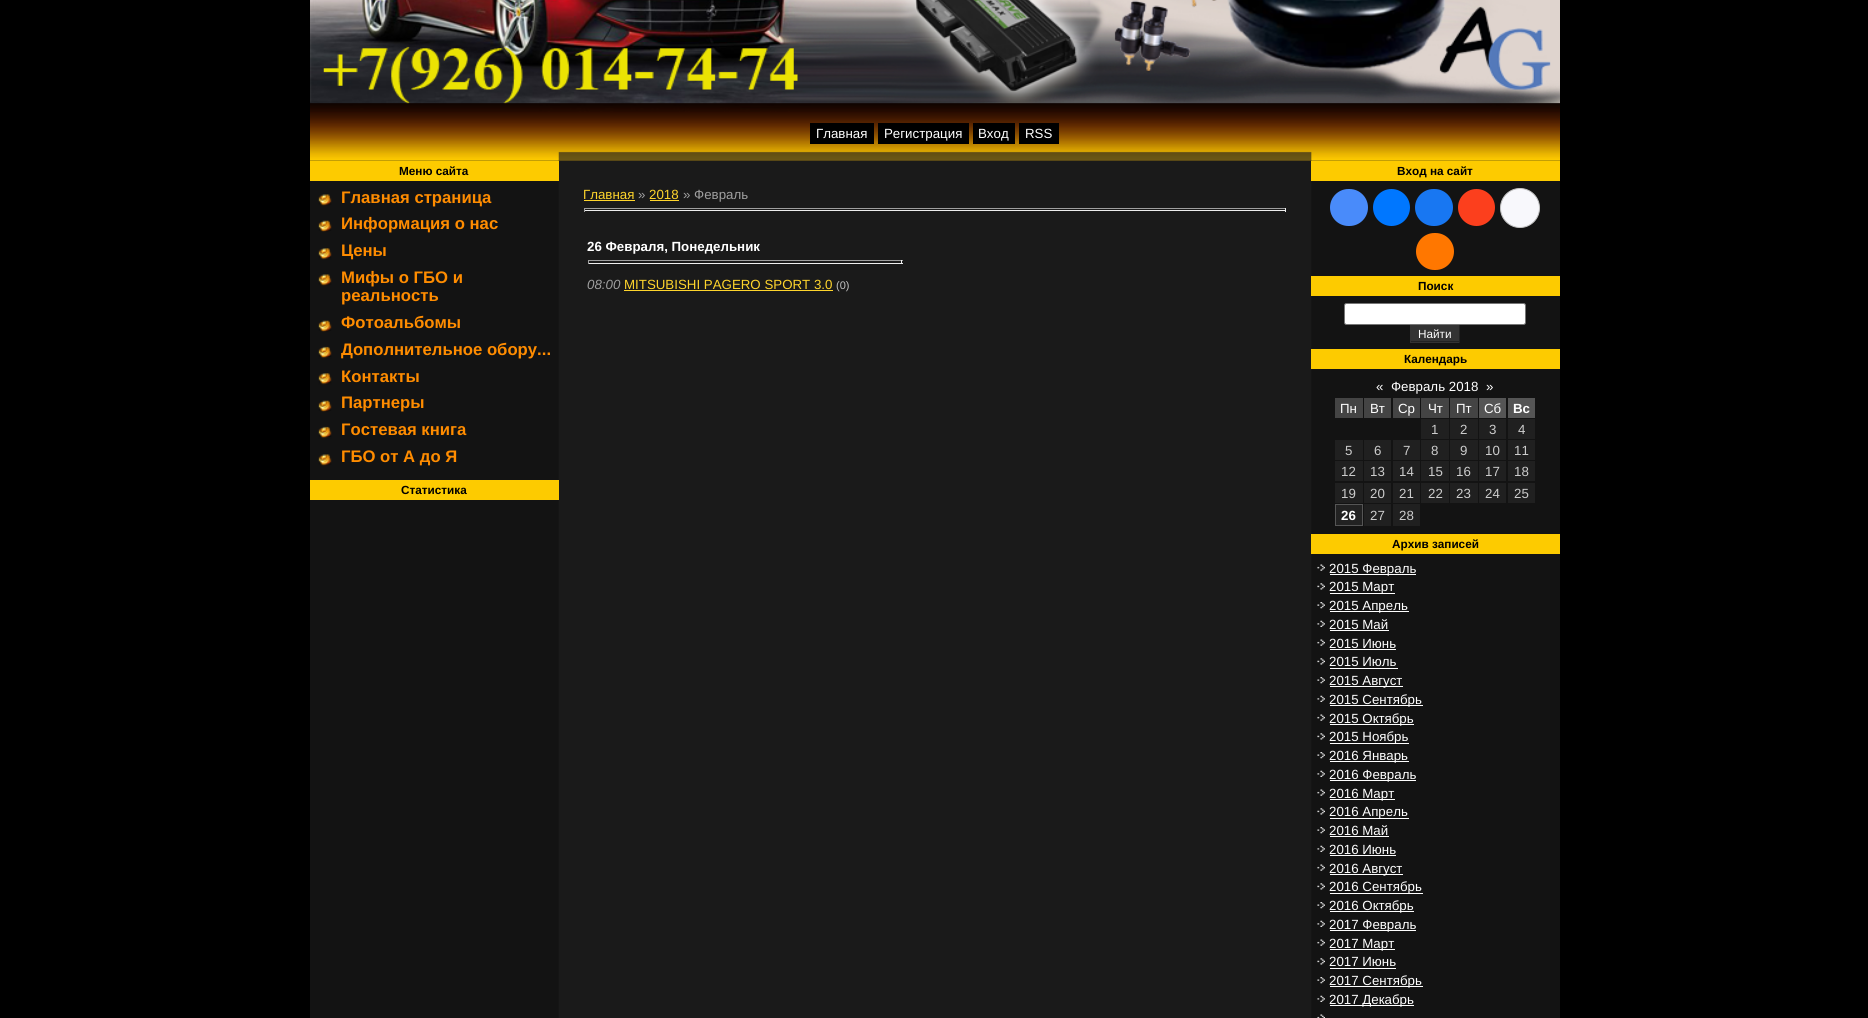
#include <cairo.h>
#include <math.h>
#include <stddef.h>


static void set_color(cairo_t *cr, unsigned color) {
    cairo_set_source_rgb(cr, (color >> 16) / 255.0, (color >> 8 & 255) / 255.0, (color & 255) / 255.0);
}

static void draw_text(cairo_t *cr, double x, double y, const char *s, const char *family, double size, int italic, int bold, unsigned color) {
    cairo_select_font_face(cr, family, italic ? CAIRO_FONT_SLANT_ITALIC : CAIRO_FONT_SLANT_NORMAL,
        bold ? CAIRO_FONT_WEIGHT_BOLD : CAIRO_FONT_WEIGHT_NORMAL);
    cairo_set_font_size(cr, size);
    set_color(cr, color);
    cairo_move_to(cr, x, y);
    cairo_show_text(cr, s);
}

static void fill_rect(cairo_t *cr, double x, double y, double w, double h, unsigned color) {
    set_color(cr, color);
    cairo_rectangle(cr, x, y, w, h);
    cairo_fill(cr);
}

static void rounded_rect(cairo_t *cr, double x, double y, double w, double h, double r) {
    cairo_new_sub_path(cr);
    cairo_arc(cr, x + w - r, y + h - r, r, 0, M_PI / 2);
    cairo_arc(cr, x + r, y + h - r, r, M_PI / 2, M_PI);
    cairo_arc(cr, x + r, y + r, r, M_PI, 1.5 * M_PI);
    cairo_arc(cr, x + w - r, y + r, r, 1.5 * M_PI, 2 * M_PI);
    cairo_close_path(cr);
}

static void draw_image(cairo_t *cr, const char *path, double x, double y, double w, double h) {
    cairo_surface_t *image = cairo_image_surface_create_from_png(path);
    cairo_save(cr);
    cairo_set_source_surface(cr, image, x, y);
    cairo_rectangle(cr, x, y, w, h);
    cairo_fill(cr);
    cairo_restore(cr);
    cairo_surface_destroy(image);
}

int main(void) {
    cairo_surface_t *surface = cairo_image_surface_create(CAIRO_FORMAT_RGB24, 1868, 1018);
    cairo_t *cr = cairo_create(surface);
    cairo_font_options_t *options = cairo_font_options_create();
    cairo_font_options_set_hint_metrics(options, CAIRO_HINT_METRICS_OFF);
    cairo_font_options_set_hint_style(options, CAIRO_HINT_STYLE_NONE);
    cairo_set_font_options(cr, options);
    cairo_set_miter_limit(cr, 4);
    set_color(cr, 0x000000);
    cairo_paint(cr);
    draw_image(cr, "assets/img1.png", 310, 103, 1250, 915);
    draw_image(cr, "assets/img2.png", 310, 0, 1250, 104);
    draw_image(cr, "assets/img3.png", 401, 103, 1159, 1);
    draw_image(cr, "assets/img4.png", 310, 103, 1250, 58);
    fill_rect(cr, 810, 123, 64, 21, 0x000000);
    draw_text(cr, 816, 138, "Главная", "Liberation Sans", 13.3, 0, 0, 0xFFFFFF);
    fill_rect(cr, 878, 123, 91, 21, 0x000000);
    draw_text(cr, 884, 138, "Регистрация", "Liberation Sans", 13.3, 0, 0, 0xFFFFFF);
    fill_rect(cr, 973, 123, 42, 21, 0x000000);
    draw_text(cr, 978, 138, "Вход", "Liberation Sans", 13.3, 0, 0, 0xFFFFFF);
    fill_rect(cr, 1019, 123, 40, 21, 0x000000);
    draw_text(cr, 1025, 138, "RSS", "Liberation Sans", 13.3, 0, 0, 0xFFFFFF);
    fill_rect(cr, 310, 161, 249, 20, 0xFDCB00);
    draw_text(cr, 399, 175, "Меню сайта", "Liberation Sans", 11.75, 0, 1, 0x000000);
    draw_image(cr, "assets/img5.png", 318, 194, 14, 12);
    draw_text(cr, 341, 203, "Главная страница", "Liberation Sans", 16.7, 0, 1, 0xFF8C00);
    draw_image(cr, "assets/img6.png", 318, 220, 14, 12);
    draw_text(cr, 341, 229, "Информация о нас", "Liberation Sans", 16.7, 0, 1, 0xFF8C00);
    draw_image(cr, "assets/img7.png", 318, 248, 14, 12);
    draw_text(cr, 341, 256, "Цены", "Liberation Sans", 16.7, 0, 1, 0xFF8C00);
    draw_image(cr, "assets/img8.png", 318, 274, 14, 12);
    draw_text(cr, 341, 283, "Мифы о ГБО и", "Liberation Sans", 16.7, 0, 1, 0xFF8C00);
    draw_text(cr, 341, 301, "реальность", "Liberation Sans", 16.7, 0, 1, 0xFF8C00);
    draw_image(cr, "assets/img6.png", 318, 320, 14, 12);
    draw_text(cr, 341, 328, "Фотоальбомы", "Liberation Sans", 16.7, 0, 1, 0xFF8C00);
    draw_image(cr, "assets/img9.png", 318, 346, 14, 13);
    draw_text(cr, 341, 355, "Дополнительное обору...", "Liberation Sans", 16.7, 0, 1, 0xFF8C00);
    draw_image(cr, "assets/img7.png", 318, 373, 14, 12);
    draw_text(cr, 341, 382, "Контакты", "Liberation Sans", 16.7, 0, 1, 0xFF8C00);
    draw_image(cr, "assets/img6.png", 318, 400, 14, 12);
    draw_text(cr, 341, 408, "Партнеры", "Liberation Sans", 16.7, 0, 1, 0xFF8C00);
    draw_image(cr, "assets/img10.png", 318, 426, 14, 13);
    draw_text(cr, 341, 435, "Гостевая книга", "Liberation Sans", 16.7, 0, 1, 0xFF8C00);
    draw_image(cr, "assets/img5.png", 318, 454, 14, 12);
    draw_text(cr, 341, 462, "ГБО от А до Я", "Liberation Sans", 16.7, 0, 1, 0xFF8C00);
    fill_rect(cr, 310, 480, 249, 20, 0xFDCB00);
    draw_text(cr, 401, 494, "Статистика", "Liberation Sans", 11.75, 0, 1, 0x000000);
    draw_text(cr, 583, 199, "Главная", "Liberation Sans", 13.3, 0, 0, 0xFFD52C);
    fill_rect(cr, 584, 200, 51, 1, 0xFFD52C);
    draw_text(cr, 638, 199, "»", "Liberation Sans", 13.3, 0, 0, 0x9F9F9F);
    draw_text(cr, 649, 199, "2018", "Liberation Sans", 13.3, 0, 0, 0xFFD52C);
    fill_rect(cr, 650, 200, 29, 1, 0xFFD52C);
    draw_text(cr, 683, 199, "» Февраль", "Liberation Sans", 13.3, 0, 0, 0x9F9F9F);
    fill_rect(cr, 584, 208, 702, 1, 0x9F9F9F);
    fill_rect(cr, 1285, 208, 1, 4, 0xEEEEEE);
    fill_rect(cr, 584, 210, 702, 1, 0xEEEEEE);
    fill_rect(cr, 584, 208, 1, 4, 0x9F9F9F);
    draw_text(cr, 587, 251, "26 Февраля, Понедельник", "Liberation Sans", 13.3, 0, 1, 0xFFFFFF);
    fill_rect(cr, 588, 260, 315, 1, 0x9F9F9F);
    fill_rect(cr, 901, 260, 1, 4, 0xEEEEEE);
    fill_rect(cr, 588, 263, 315, 1, 0xEEEEEE);
    fill_rect(cr, 588, 260, 1, 4, 0x9F9F9F);
    draw_text(cr, 587, 289, "08:00", "Liberation Sans", 13.3, 1, 0, 0x9F9F9F);
    draw_text(cr, 624, 289, "MITSUBISHI PAGERO SPORT 3.0", "Liberation Sans", 13.3, 0, 0, 0xFFD52C);
    fill_rect(cr, 624, 290, 209, 1, 0xFFD52C);
    draw_text(cr, 836, 289, "(0)", "Liberation Sans", 11, 0, 0, 0xC3C3C3);
    fill_rect(cr, 1311, 161, 249, 20, 0xFDCB00);
    draw_text(cr, 1397, 175, "Вход на сайт", "Liberation Sans", 11.75, 0, 1, 0x000000);
    set_color(cr, 0x498BFA);
    rounded_rect(cr, 1330, 189, 38, 37, 18.5);
    cairo_fill(cr);
    set_color(cr, 0x0077FF);
    cairo_arc(cr, 1391.5, 207.5, 18.5, 0, 2 * M_PI);
    cairo_fill(cr);
    set_color(cr, 0x1877F2);
    rounded_rect(cr, 1415, 189, 38, 37, 18.5);
    cairo_fill(cr);
    set_color(cr, 0xFC3F1D);
    cairo_arc(cr, 1476.5, 207.5, 18.5, 0, 2 * M_PI);
    cairo_fill(cr);
    set_color(cr, 0xF8F8FC);
    cairo_arc(cr, 1520, 208, 19.5, 0, 2 * M_PI);
    cairo_fill_preserve(cr);
    set_color(cr, 0xC4C4C4);
    cairo_set_line_width(cr, 1);
    cairo_stroke(cr);
    set_color(cr, 0xFF7700);
    rounded_rect(cr, 1416, 233, 38, 37, 18.5);
    cairo_fill(cr);
    fill_rect(cr, 1311, 276, 249, 20, 0xFDCB00);
    draw_text(cr, 1418, 290, "Поиск", "Liberation Sans", 11.75, 0, 1, 0x000000);
    set_color(cr, 0xFFFFFF);
    rounded_rect(cr, 1344.5, 303.5, 181, 21, 2);
    cairo_fill_preserve(cr);
    set_color(cr, 0x767676);
    cairo_stroke(cr);
    fill_rect(cr, 1411, 325, 48, 18, 0x333333);
    fill_rect(cr, 1459, 325, 1, 18, 0x222222);
    fill_rect(cr, 1410, 341, 50, 1, 0x222222);
    fill_rect(cr, 1410, 325, 1, 18, 0x333333);
    draw_text(cr, 1418, 338, "Найти", "Liberation Sans", 11.75, 0, 0, 0xFFFFFF);
    fill_rect(cr, 1311, 349, 249, 20, 0xFDCB00);
    draw_text(cr, 1404, 363, "Календарь", "Liberation Sans", 11.75, 0, 1, 0x000000);
    draw_text(cr, 1376, 391, "«", "Liberation Sans", 13.3, 0, 0, 0xFFFFFF);
    draw_text(cr, 1391, 391, "Февраль 2018", "Liberation Sans", 13.3, 0, 0, 0xFFFFFF);
    draw_text(cr, 1486, 391, "»", "Liberation Sans", 13.3, 0, 0, 0xFFFFFF);
    fill_rect(cr, 1335, 398, 28, 20, 0x444444);
    draw_text(cr, 1340, 413, "Пн", "Liberation Sans", 13.3, 0, 0, 0xFFFFFF);
    fill_rect(cr, 1364, 398, 27, 20, 0x444444);
    draw_text(cr, 1370, 413, "Вт", "Liberation Sans", 13.3, 0, 0, 0xFFFFFF);
    fill_rect(cr, 1393, 398, 27, 20, 0x444444);
    draw_text(cr, 1398, 413, "Ср", "Liberation Sans", 13.3, 0, 0, 0xFFFFFF);
    fill_rect(cr, 1421, 398, 28, 20, 0x444444);
    draw_text(cr, 1428, 413, "Чт", "Liberation Sans", 13.3, 0, 0, 0xFFFFFF);
    fill_rect(cr, 1450, 398, 28, 20, 0x444444);
    draw_text(cr, 1456, 413, "Пт", "Liberation Sans", 13.3, 0, 0, 0xFFFFFF);
    fill_rect(cr, 1479, 398, 27, 20, 0x555555);
    draw_text(cr, 1484, 413, "Сб", "Liberation Sans", 13.3, 0, 0, 0xFFFFFF);
    fill_rect(cr, 1508, 398, 27, 20, 0x555555);
    draw_text(cr, 1513, 413, "Вс", "Liberation Sans", 13.3, 0, 1, 0xFFFFFF);
    fill_rect(cr, 1421, 419, 28, 20, 0x202020);
    draw_text(cr, 1431, 434, "1", "Liberation Sans", 13.3, 0, 0, 0xCCCCCC);
    fill_rect(cr, 1450, 419, 28, 20, 0x202020);
    draw_text(cr, 1460, 434, "2", "Liberation Sans", 13.3, 0, 0, 0xCCCCCC);
    fill_rect(cr, 1479, 419, 27, 20, 0x202020);
    draw_text(cr, 1489, 434, "3", "Liberation Sans", 13.3, 0, 0, 0xCCCCCC);
    fill_rect(cr, 1508, 419, 27, 20, 0x202020);
    draw_text(cr, 1518, 434, "4", "Liberation Sans", 13.3, 0, 0, 0xCCCCCC);
    fill_rect(cr, 1335, 440, 28, 20, 0x202020);
    draw_text(cr, 1345, 455, "5", "Liberation Sans", 13.3, 0, 0, 0xCCCCCC);
    fill_rect(cr, 1364, 440, 27, 20, 0x202020);
    draw_text(cr, 1374, 455, "6", "Liberation Sans", 13.3, 0, 0, 0xCCCCCC);
    fill_rect(cr, 1393, 440, 27, 20, 0x202020);
    draw_text(cr, 1403, 455, "7", "Liberation Sans", 13.3, 0, 0, 0xCCCCCC);
    fill_rect(cr, 1421, 440, 28, 20, 0x202020);
    draw_text(cr, 1431, 455, "8", "Liberation Sans", 13.3, 0, 0, 0xCCCCCC);
    fill_rect(cr, 1450, 440, 28, 20, 0x202020);
    draw_text(cr, 1460, 455, "9", "Liberation Sans", 13.3, 0, 0, 0xCCCCCC);
    fill_rect(cr, 1479, 440, 27, 20, 0x202020);
    draw_text(cr, 1485, 455, "10", "Liberation Sans", 13.3, 0, 0, 0xCCCCCC);
    fill_rect(cr, 1508, 440, 27, 20, 0x202020);
    draw_text(cr, 1514, 455, "11", "Liberation Sans", 13.3, 0, 0, 0xCCCCCC);
    fill_rect(cr, 1335, 461, 28, 20, 0x202020);
    draw_text(cr, 1341, 476, "12", "Liberation Sans", 13.3, 0, 0, 0xCCCCCC);
    fill_rect(cr, 1364, 461, 27, 20, 0x202020);
    draw_text(cr, 1370, 476, "13", "Liberation Sans", 13.3, 0, 0, 0xCCCCCC);
    fill_rect(cr, 1393, 461, 27, 20, 0x202020);
    draw_text(cr, 1399, 476, "14", "Liberation Sans", 13.3, 0, 0, 0xCCCCCC);
    fill_rect(cr, 1421, 461, 28, 20, 0x202020);
    draw_text(cr, 1428, 476, "15", "Liberation Sans", 13.3, 0, 0, 0xCCCCCC);
    fill_rect(cr, 1450, 461, 28, 20, 0x202020);
    draw_text(cr, 1456, 476, "16", "Liberation Sans", 13.3, 0, 0, 0xCCCCCC);
    fill_rect(cr, 1479, 461, 27, 20, 0x202020);
    draw_text(cr, 1485, 476, "17", "Liberation Sans", 13.3, 0, 0, 0xCCCCCC);
    fill_rect(cr, 1508, 461, 27, 20, 0x202020);
    draw_text(cr, 1514, 476, "18", "Liberation Sans", 13.3, 0, 0, 0xCCCCCC);
    fill_rect(cr, 1335, 483, 28, 20, 0x202020);
    draw_text(cr, 1341, 498, "19", "Liberation Sans", 13.3, 0, 0, 0xCCCCCC);
    fill_rect(cr, 1364, 483, 27, 20, 0x202020);
    draw_text(cr, 1370, 498, "20", "Liberation Sans", 13.3, 0, 0, 0xCCCCCC);
    fill_rect(cr, 1393, 483, 27, 20, 0x202020);
    draw_text(cr, 1399, 498, "21", "Liberation Sans", 13.3, 0, 0, 0xCCCCCC);
    fill_rect(cr, 1421, 483, 28, 20, 0x202020);
    draw_text(cr, 1428, 498, "22", "Liberation Sans", 13.3, 0, 0, 0xCCCCCC);
    fill_rect(cr, 1450, 483, 28, 20, 0x202020);
    draw_text(cr, 1456, 498, "23", "Liberation Sans", 13.3, 0, 0, 0xCCCCCC);
    fill_rect(cr, 1479, 483, 27, 20, 0x202020);
    draw_text(cr, 1485, 498, "24", "Liberation Sans", 13.3, 0, 0, 0xCCCCCC);
    fill_rect(cr, 1508, 483, 27, 20, 0x202020);
    draw_text(cr, 1514, 498, "25", "Liberation Sans", 13.3, 0, 0, 0xCCCCCC);
    set_color(cr, 0x222222);
    cairo_rectangle(cr, 1335.5, 504.5, 27, 21);
    cairo_fill_preserve(cr);
    set_color(cr, 0x555555);
    cairo_stroke(cr);
    draw_text(cr, 1341, 520, "26", "Liberation Sans", 13.3, 0, 1, 0xFFFFFF);
    fill_rect(cr, 1364, 504, 27, 22, 0x202020);
    draw_text(cr, 1370, 520, "27", "Liberation Sans", 13.3, 0, 0, 0xCCCCCC);
    fill_rect(cr, 1393, 504, 27, 22, 0x202020);
    draw_text(cr, 1399, 520, "28", "Liberation Sans", 13.3, 0, 0, 0xCCCCCC);
    fill_rect(cr, 1311, 534, 249, 20, 0xFDCB00);
    draw_text(cr, 1392, 548, "Архив записей", "Liberation Sans", 11.75, 0, 1, 0x000000);
    draw_image(cr, "assets/img11.png", 1317, 564, 8, 7);
    fill_rect(cr, 1330, 574, 86, 1, 0xFFFFFF);
    draw_text(cr, 1329, 573, "2015 Февраль", "Liberation Sans", 13.3, 0, 0, 0xFFFFFF);
    draw_image(cr, "assets/img12.png", 1317, 583, 8, 7);
    fill_rect(cr, 1330, 593, 65, 1, 0xFFFFFF);
    draw_text(cr, 1329, 591, "2015 Март", "Liberation Sans", 13.3, 0, 0, 0xFFFFFF);
    draw_image(cr, "assets/img13.png", 1317, 602, 8, 7);
    fill_rect(cr, 1330, 611, 79, 1, 0xFFFFFF);
    draw_text(cr, 1329, 610, "2015 Апрель", "Liberation Sans", 13.3, 0, 0, 0xFFFFFF);
    draw_image(cr, "assets/img14.png", 1317, 620, 8, 7);
    draw_text(cr, 1329, 629, "2015 Май", "Liberation Sans", 13.3, 0, 0, 0xFFFFFF);
    fill_rect(cr, 1330, 630, 59, 1, 0xFFFFFF);
    draw_image(cr, "assets/img11.png", 1317, 639, 8, 7);
    draw_text(cr, 1329, 648, "2015 Июнь", "Liberation Sans", 13.3, 0, 0, 0xFFFFFF);
    fill_rect(cr, 1330, 649, 66, 1, 0xFFFFFF);
    draw_image(cr, "assets/img12.png", 1317, 658, 8, 7);
    draw_text(cr, 1329, 666, "2015 Июль", "Liberation Sans", 13.3, 0, 0, 0xFFFFFF);
    fill_rect(cr, 1330, 668, 68, 1, 0xFFFFFF);
    draw_image(cr, "assets/img13.png", 1317, 677, 8, 7);
    fill_rect(cr, 1330, 686, 73, 1, 0xFFFFFF);
    draw_text(cr, 1329, 685, "2015 Август", "Liberation Sans", 13.3, 0, 0, 0xFFFFFF);
    draw_image(cr, "assets/img14.png", 1317, 695, 8, 7);
    fill_rect(cr, 1330, 705, 93, 1, 0xFFFFFF);
    draw_text(cr, 1329, 704, "2015 Сентябрь", "Liberation Sans", 13.3, 0, 0, 0xFFFFFF);
    draw_image(cr, "assets/img11.png", 1317, 714, 8, 7);
    fill_rect(cr, 1330, 724, 84, 1, 0xFFFFFF);
    draw_text(cr, 1329, 723, "2015 Октябрь", "Liberation Sans", 13.3, 0, 0, 0xFFFFFF);
    draw_image(cr, "assets/img12.png", 1317, 733, 8, 7);
    fill_rect(cr, 1330, 743, 79, 1, 0xFFFFFF);
    draw_text(cr, 1329, 741, "2015 Ноябрь", "Liberation Sans", 13.3, 0, 0, 0xFFFFFF);
    draw_image(cr, "assets/img13.png", 1317, 752, 8, 7);
    fill_rect(cr, 1330, 761, 79, 1, 0xFFFFFF);
    draw_text(cr, 1329, 760, "2016 Январь", "Liberation Sans", 13.3, 0, 0, 0xFFFFFF);
    draw_image(cr, "assets/img14.png", 1317, 770, 8, 7);
    fill_rect(cr, 1330, 780, 86, 1, 0xFFFFFF);
    draw_text(cr, 1329, 779, "2016 Февраль", "Liberation Sans", 13.3, 0, 0, 0xFFFFFF);
    draw_image(cr, "assets/img11.png", 1317, 789, 8, 7);
    fill_rect(cr, 1330, 799, 65, 1, 0xFFFFFF);
    draw_text(cr, 1329, 798, "2016 Март", "Liberation Sans", 13.3, 0, 0, 0xFFFFFF);
    draw_image(cr, "assets/img12.png", 1317, 808, 8, 7);
    fill_rect(cr, 1330, 818, 79, 1, 0xFFFFFF);
    draw_text(cr, 1329, 816, "2016 Апрель", "Liberation Sans", 13.3, 0, 0, 0xFFFFFF);
    draw_image(cr, "assets/img13.png", 1317, 827, 8, 7);
    draw_text(cr, 1329, 835, "2016 Май", "Liberation Sans", 13.3, 0, 0, 0xFFFFFF);
    fill_rect(cr, 1330, 836, 59, 1, 0xFFFFFF);
    draw_image(cr, "assets/img14.png", 1317, 845, 8, 7);
    draw_text(cr, 1329, 854, "2016 Июнь", "Liberation Sans", 13.3, 0, 0, 0xFFFFFF);
    fill_rect(cr, 1330, 855, 66, 1, 0xFFFFFF);
    draw_image(cr, "assets/img11.png", 1317, 864, 8, 7);
    fill_rect(cr, 1330, 874, 73, 1, 0xFFFFFF);
    draw_text(cr, 1329, 873, "2016 Август", "Liberation Sans", 13.3, 0, 0, 0xFFFFFF);
    draw_image(cr, "assets/img12.png", 1317, 883, 8, 7);
    fill_rect(cr, 1330, 893, 93, 1, 0xFFFFFF);
    draw_text(cr, 1329, 891, "2016 Сентябрь", "Liberation Sans", 13.3, 0, 0, 0xFFFFFF);
    draw_image(cr, "assets/img13.png", 1317, 902, 8, 7);
    fill_rect(cr, 1330, 911, 84, 1, 0xFFFFFF);
    draw_text(cr, 1329, 910, "2016 Октябрь", "Liberation Sans", 13.3, 0, 0, 0xFFFFFF);
    draw_image(cr, "assets/img14.png", 1317, 920, 8, 7);
    fill_rect(cr, 1330, 930, 86, 1, 0xFFFFFF);
    draw_text(cr, 1329, 929, "2017 Февраль", "Liberation Sans", 13.3, 0, 0, 0xFFFFFF);
    draw_image(cr, "assets/img11.png", 1317, 939, 8, 7);
    fill_rect(cr, 1330, 949, 65, 1, 0xFFFFFF);
    draw_text(cr, 1329, 948, "2017 Март", "Liberation Sans", 13.3, 0, 0, 0xFFFFFF);
    draw_image(cr, "assets/img12.png", 1317, 958, 8, 7);
    draw_text(cr, 1329, 966, "2017 Июнь", "Liberation Sans", 13.3, 0, 0, 0xFFFFFF);
    fill_rect(cr, 1330, 968, 66, 1, 0xFFFFFF);
    draw_image(cr, "assets/img13.png", 1317, 977, 8, 7);
    fill_rect(cr, 1330, 986, 93, 1, 0xFFFFFF);
    draw_text(cr, 1329, 985, "2017 Сентябрь", "Liberation Sans", 13.3, 0, 0, 0xFFFFFF);
    draw_image(cr, "assets/img14.png", 1317, 995, 8, 7);
    fill_rect(cr, 1330, 1005, 84, 1, 0xFFFFFF);
    draw_text(cr, 1329, 1004, "2017 Декабрь", "Liberation Sans", 13.3, 0, 0, 0xFFFFFF);
    draw_image(cr, "assets/img15.png", 1317, 1014, 8, 4);
    cairo_surface_write_to_png(surface, "output.png");
    cairo_font_options_destroy(options);
    cairo_destroy(cr);
    cairo_surface_destroy(surface);
    return 0;
}
